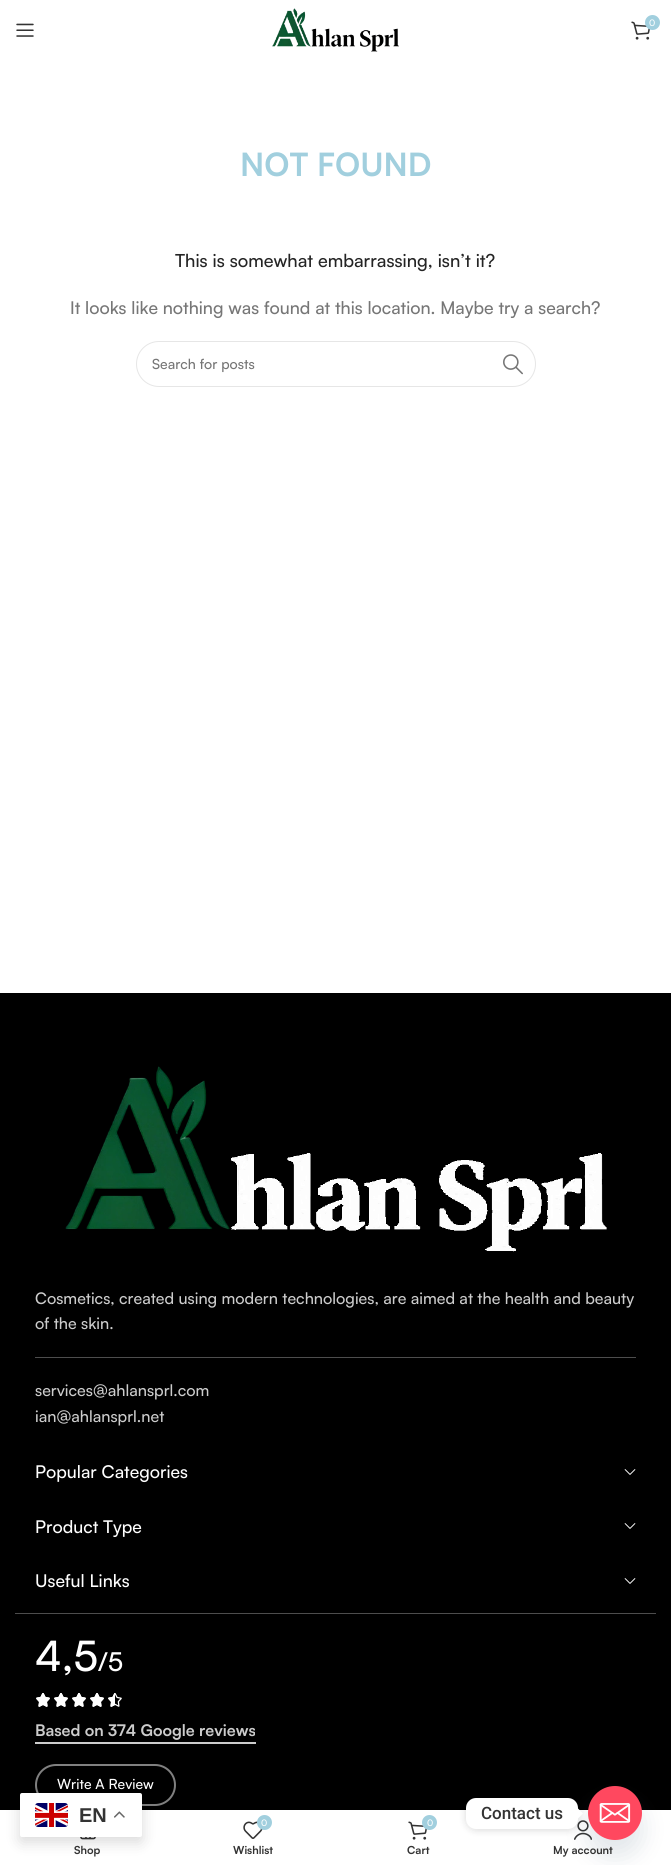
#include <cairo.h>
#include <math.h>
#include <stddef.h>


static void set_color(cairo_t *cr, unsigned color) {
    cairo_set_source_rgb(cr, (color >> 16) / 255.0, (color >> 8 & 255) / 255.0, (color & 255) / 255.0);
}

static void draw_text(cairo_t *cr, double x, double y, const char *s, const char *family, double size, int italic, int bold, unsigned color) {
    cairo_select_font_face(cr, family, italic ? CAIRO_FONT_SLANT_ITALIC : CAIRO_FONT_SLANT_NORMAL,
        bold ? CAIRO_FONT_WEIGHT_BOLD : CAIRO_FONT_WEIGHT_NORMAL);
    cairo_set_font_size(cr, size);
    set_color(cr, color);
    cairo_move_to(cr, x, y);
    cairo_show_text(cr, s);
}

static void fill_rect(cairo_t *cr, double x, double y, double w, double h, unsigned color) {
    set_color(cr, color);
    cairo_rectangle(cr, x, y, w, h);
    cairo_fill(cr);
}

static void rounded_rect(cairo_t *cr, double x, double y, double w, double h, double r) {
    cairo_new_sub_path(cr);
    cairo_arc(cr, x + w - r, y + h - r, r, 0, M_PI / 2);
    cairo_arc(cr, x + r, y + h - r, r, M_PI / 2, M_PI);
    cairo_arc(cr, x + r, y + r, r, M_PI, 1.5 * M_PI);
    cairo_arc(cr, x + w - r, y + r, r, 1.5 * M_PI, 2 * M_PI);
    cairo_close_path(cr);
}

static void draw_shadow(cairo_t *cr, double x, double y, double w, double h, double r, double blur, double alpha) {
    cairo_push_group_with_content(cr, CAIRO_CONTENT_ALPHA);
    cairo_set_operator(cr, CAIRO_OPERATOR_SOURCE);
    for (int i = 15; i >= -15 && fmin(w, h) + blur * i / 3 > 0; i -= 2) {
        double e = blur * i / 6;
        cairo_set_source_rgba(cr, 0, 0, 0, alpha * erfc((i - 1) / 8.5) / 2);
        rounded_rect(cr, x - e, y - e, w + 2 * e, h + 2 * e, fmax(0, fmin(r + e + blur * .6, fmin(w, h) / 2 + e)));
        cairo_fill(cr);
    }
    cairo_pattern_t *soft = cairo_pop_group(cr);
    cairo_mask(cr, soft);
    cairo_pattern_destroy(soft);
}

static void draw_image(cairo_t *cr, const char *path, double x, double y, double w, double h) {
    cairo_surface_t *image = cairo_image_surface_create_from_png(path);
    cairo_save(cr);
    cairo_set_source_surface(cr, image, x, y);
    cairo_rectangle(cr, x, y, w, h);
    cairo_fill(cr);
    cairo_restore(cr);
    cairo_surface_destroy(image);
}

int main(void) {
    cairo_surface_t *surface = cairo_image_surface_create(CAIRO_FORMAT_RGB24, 671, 1865);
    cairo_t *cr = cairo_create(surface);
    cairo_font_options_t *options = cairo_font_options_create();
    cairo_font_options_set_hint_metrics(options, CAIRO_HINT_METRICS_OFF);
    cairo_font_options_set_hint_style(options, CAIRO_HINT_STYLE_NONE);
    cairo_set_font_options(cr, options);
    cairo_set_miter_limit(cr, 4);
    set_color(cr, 0xFFFFFF);
    cairo_paint(cr);
    draw_image(cr, "assets/img1.png", 16, 23, 18, 14);
    draw_image(cr, "assets/img2.png", 272, 8, 127, 44);
    draw_image(cr, "assets/img3.png", 631, 21, 19, 19);
    set_color(cr, 0xA1CFDE);
    cairo_arc(cr, 652.5, 22.5, 7.5, 0, 2 * M_PI);
    cairo_fill(cr);
    draw_text(cr, 649, 26, "0", "Satoshi Medium", 9, 0, 0, 0xFFFFFF);
    draw_text(cr, 240, 176, "NOT FOUND", "Satoshi", 32, 0, 1, 0xA1CFDE);
    draw_text(cr, 175, 267, "This is somewhat embarrassing, isn’t it?", "Satoshi Medium", 18, 0, 0, 0x242424);
    draw_text(cr, 70, 314, "It looks like nothing was found at this location. Maybe try a search?", "Satoshi Medium", 17.6, 0, 0, 0x767676);
    rounded_rect(cr, 136.5, 341.5, 399, 45, 22.5);
    set_color(cr, 0xE6E6E6);
    cairo_set_line_width(cr, 1);
    cairo_stroke(cr);
    draw_text(cr, 152, 369, "Search for posts", "Satoshi Medium", 14, 0, 0, 0x767676);
    draw_image(cr, "assets/img4.png", 503, 354, 20, 21);
    fill_rect(cr, 0, 993, 671, 817, 0x000000);
    draw_image(cr, "assets/img5.png", 65, 1066, 542, 186);
    draw_text(cr, 35, 1304, "Cosmetics, created using modern technologies, are aimed at the health and beauty", "Satoshi Medium", 16, 0, 0, 0xCCCCCC);
    draw_text(cr, 35, 1329, "of the skin.", "Satoshi Medium", 16, 0, 0, 0xCCCCCC);
    fill_rect(cr, 35, 1357, 601, 1, 0x4D4D4D);
    draw_text(cr, 35, 1396, "services@ahlansprl.com", "Satoshi Medium", 16, 0, 0, 0xCCCCCC);
    draw_text(cr, 35, 1422, "ian@ahlansprl.net", "Satoshi Medium", 16, 0, 0, 0xCCCCCC);
    draw_text(cr, 35, 1478, "Popular Categories", "Satoshi Medium", 17.6, 0, 0, 0xFFFFFF);
    draw_image(cr, "assets/img6.png", 624, 1469, 12, 6);
    draw_text(cr, 35, 1533, "Product Type", "Satoshi Medium", 17.6, 0, 0, 0xFFFFFF);
    draw_image(cr, "assets/img6.png", 624, 1523, 12, 6);
    draw_text(cr, 35, 1587, "Useful Links", "Satoshi Medium", 17.6, 0, 0, 0xFFFFFF);
    draw_image(cr, "assets/img6.png", 624, 1578, 12, 6);
    fill_rect(cr, 15, 1613, 641, 1, 0x4D4D4D);
    draw_text(cr, 35, 1671, "4,5", "Satoshi Medium", 42, 0, 0, 0xFFFFFF);
    draw_text(cr, 98, 1671, "/5", "Satoshi Medium", 26, 0, 0, 0xFFFFFF);
    draw_image(cr, "assets/img7.png", 36, 1693, 86, 14);
    draw_image(cr, "assets/img8.png", 36, 1693, 79, 14);
    draw_text(cr, 35, 1736, "Based on 374 Google reviews", "Satoshi", 16, 0, 1, 0xCCCCCC);
    fill_rect(cr, 35, 1742, 221, 2, 0xCCCCCC);
    rounded_rect(cr, 36, 1765, 139, 40, 20);
    set_color(cr, 0x808080);
    cairo_set_line_width(cr, 2);
    cairo_stroke(cr);
    draw_text(cr, 57, 1789, "Write A Review", "Satoshi Medium", 14, 0, 0, 0xFFFFFF);
    set_color(cr, 0x000000);
    draw_shadow(cr, 0, 1810, 671, 55, 0, 4.5, 0.12);
    fill_rect(cr, 0, 1810, 671, 55, 0xFFFFFF);
    draw_image(cr, "assets/img12.png", 80, 1837, 16, 3);
    set_color(cr, 0x000000);
    draw_shadow(cr, 20, 1798, 122, 44, 2, 7.5, 0.15);
    set_color(cr, 0xFFFFFF);
    rounded_rect(cr, 20, 1793, 122, 44, 2);
    cairo_fill(cr);
    draw_image(cr, "assets/img9.png", 35, 1803, 33, 24);
    draw_text(cr, 79, 1822, "EN", "Liberation Sans", 20, 0, 1, 0x333333);
    draw_image(cr, "assets/img10.png", 114, 1811, 11, 7);
    draw_image(cr, "assets/img14.png", 574, 1820, 18, 20);
    set_color(cr, 0x49687E);
    draw_shadow(cr, 588, 1802, 54, 54, 27, 12, 0.16);
    draw_image(cr, "assets/img11.png", 588, 1786, 54, 54);
    set_color(cr, 0x000000);
    draw_shadow(cr, 466, 1799, 112, 31, 10, 4, 0.15);
    set_color(cr, 0xFFFFFF);
    rounded_rect(cr, 466, 1798, 112, 31, 10);
    cairo_fill(cr);
    draw_text(cr, 481, 1819, "Contact us", "Roboto Medium", 17, 0, 0, 0x333333);
    set_color(cr, 0xFFFFFF);
    cairo_new_path(cr);
    cairo_move_to(cr, 578, 1818.5);
    cairo_line_to(cr, 578, 1808.5);
    cairo_line_to(cr, 583, 1813.5);
    cairo_close_path(cr);
    cairo_fill(cr);
    draw_text(cr, 74, 1854, "Shop", "Satoshi", 11, 0, 1, 0x333333);
    draw_image(cr, "assets/img13.png", 243, 1821, 20, 18);
    set_color(cr, 0xA1CFDE);
    cairo_arc(cr, 264.5, 1822.5, 7.5, 0, 2 * M_PI);
    cairo_fill(cr);
    draw_text(cr, 261, 1826, "0", "Satoshi Medium", 9, 0, 0, 0xFFFFFF);
    draw_text(cr, 233, 1854, "Wishlist", "Satoshi", 11, 0, 1, 0x333333);
    draw_image(cr, "assets/img3.png", 408, 1821, 19, 19);
    set_color(cr, 0xA1CFDE);
    cairo_arc(cr, 429.5, 1822.5, 7.5, 0, 2 * M_PI);
    cairo_fill(cr);
    draw_text(cr, 427, 1826, "0", "Satoshi Medium", 9, 0, 0, 0xFFFFFF);
    draw_text(cr, 407, 1854, "Cart", "Satoshi", 11, 0, 1, 0x333333);
    draw_text(cr, 553, 1854, "My account", "Satoshi", 11, 0, 1, 0x333333);
    cairo_surface_write_to_png(surface, "output.png");
    cairo_font_options_destroy(options);
    cairo_destroy(cr);
    cairo_surface_destroy(surface);
    return 0;
}
